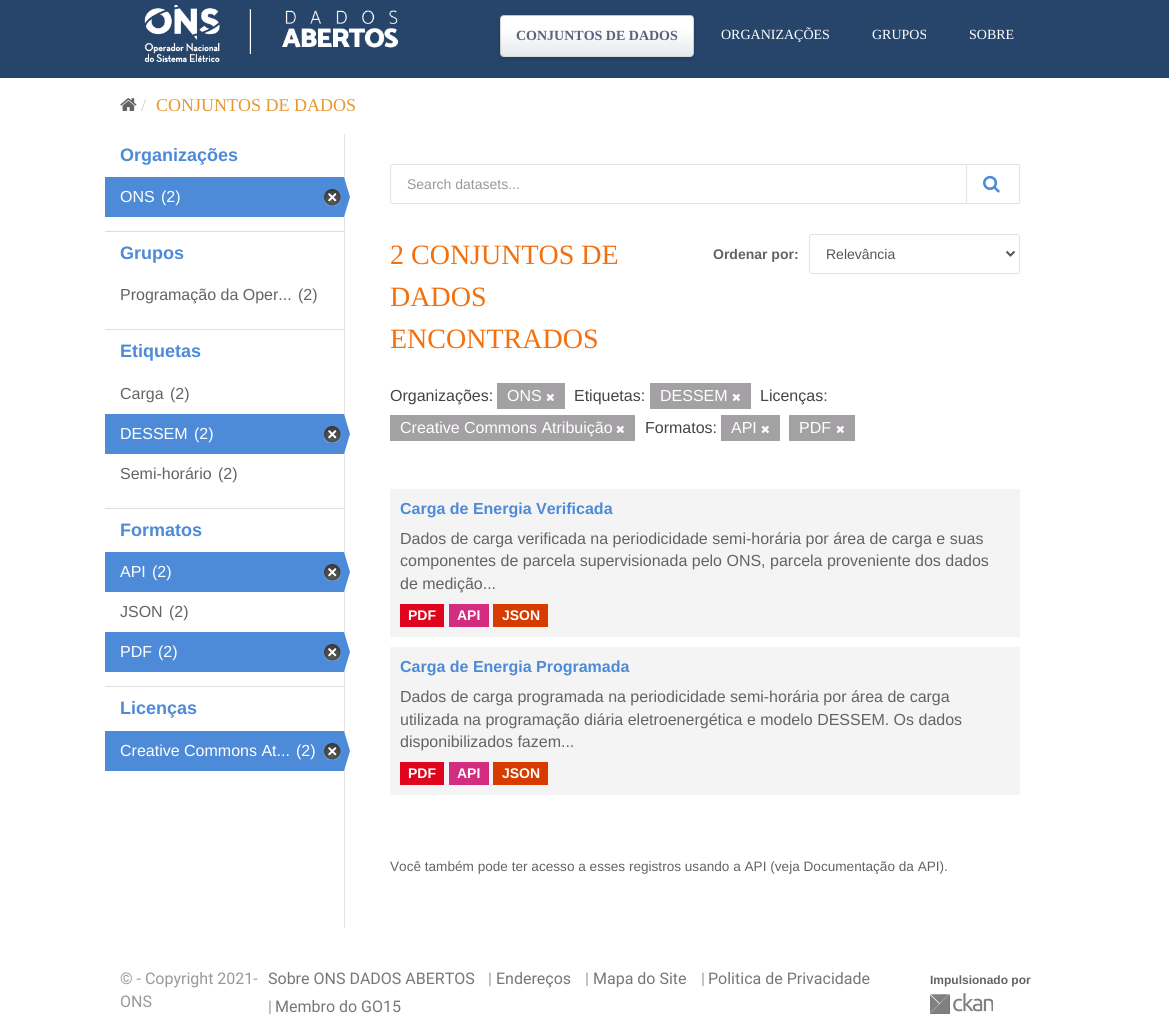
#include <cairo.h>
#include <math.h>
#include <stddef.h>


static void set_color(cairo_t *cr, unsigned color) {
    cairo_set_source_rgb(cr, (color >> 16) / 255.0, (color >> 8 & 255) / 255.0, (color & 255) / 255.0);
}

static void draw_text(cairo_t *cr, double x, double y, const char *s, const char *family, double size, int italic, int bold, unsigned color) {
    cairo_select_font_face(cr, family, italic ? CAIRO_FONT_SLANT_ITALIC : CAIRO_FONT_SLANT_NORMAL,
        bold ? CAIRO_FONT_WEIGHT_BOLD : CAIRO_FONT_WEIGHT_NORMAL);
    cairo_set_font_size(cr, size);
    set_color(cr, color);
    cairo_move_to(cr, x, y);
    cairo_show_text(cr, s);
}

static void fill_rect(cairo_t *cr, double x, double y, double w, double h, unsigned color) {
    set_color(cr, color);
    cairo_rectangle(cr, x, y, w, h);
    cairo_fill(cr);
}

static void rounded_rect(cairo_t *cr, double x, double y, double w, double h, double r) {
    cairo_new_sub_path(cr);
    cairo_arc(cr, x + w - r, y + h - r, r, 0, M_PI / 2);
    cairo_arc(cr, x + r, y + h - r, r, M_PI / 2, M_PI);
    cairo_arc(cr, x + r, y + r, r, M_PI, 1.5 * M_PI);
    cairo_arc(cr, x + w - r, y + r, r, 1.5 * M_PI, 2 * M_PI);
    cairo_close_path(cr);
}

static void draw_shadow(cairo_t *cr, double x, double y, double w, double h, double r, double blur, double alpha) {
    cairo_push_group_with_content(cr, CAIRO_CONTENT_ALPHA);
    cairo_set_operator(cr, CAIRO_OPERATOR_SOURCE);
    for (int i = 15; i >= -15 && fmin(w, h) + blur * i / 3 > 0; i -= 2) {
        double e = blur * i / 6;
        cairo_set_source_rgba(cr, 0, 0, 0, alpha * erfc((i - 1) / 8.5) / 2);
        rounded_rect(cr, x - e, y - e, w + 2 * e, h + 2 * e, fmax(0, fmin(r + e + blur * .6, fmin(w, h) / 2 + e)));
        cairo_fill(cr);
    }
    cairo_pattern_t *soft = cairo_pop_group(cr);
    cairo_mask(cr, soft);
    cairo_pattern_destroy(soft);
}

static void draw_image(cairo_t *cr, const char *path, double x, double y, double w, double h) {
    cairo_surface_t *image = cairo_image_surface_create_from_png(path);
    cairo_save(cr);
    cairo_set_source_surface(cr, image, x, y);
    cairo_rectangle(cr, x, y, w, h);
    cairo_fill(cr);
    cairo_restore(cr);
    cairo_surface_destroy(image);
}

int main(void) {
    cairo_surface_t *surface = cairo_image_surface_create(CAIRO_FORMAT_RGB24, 1169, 1025);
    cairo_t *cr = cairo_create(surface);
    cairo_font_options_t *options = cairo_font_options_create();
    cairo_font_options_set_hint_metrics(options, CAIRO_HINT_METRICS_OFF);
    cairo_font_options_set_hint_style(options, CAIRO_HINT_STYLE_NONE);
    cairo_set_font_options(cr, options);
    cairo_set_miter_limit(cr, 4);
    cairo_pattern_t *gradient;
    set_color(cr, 0xFFFFFF);
    cairo_paint(cr);
    fill_rect(cr, 0, 0, 1169, 78, 0x27456B);
    draw_image(cr, "assets/img1.png", 144, 5, 255, 58);
    set_color(cr, 0x000000);
    draw_shadow(cr, 500, 17, 194, 42, 4, 3.5, 0.14);
    cairo_save(cr);
    rounded_rect(cr, 500, 15, 194, 42, 4);
    cairo_clip(cr);
    gradient = cairo_pattern_create_linear(597, -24, 597, 16);
    cairo_pattern_add_color_stop_rgba(gradient, 0.32, 1, 1, 1, 1);
    cairo_pattern_add_color_stop_rgba(gradient, 1, 0.898, 0.918, 0.925, 1);
    cairo_set_source(cr, gradient);
    cairo_pattern_destroy(gradient);
    cairo_rectangle(cr, 500, 15, 194, 1);
    cairo_fill(cr);
    gradient = cairo_pattern_create_linear(597, 16, 597, 56);
    cairo_pattern_add_color_stop_rgba(gradient, 0.32, 1, 1, 1, 1);
    cairo_pattern_add_color_stop_rgba(gradient, 1, 0.898, 0.918, 0.925, 1);
    cairo_set_source(cr, gradient);
    cairo_pattern_destroy(gradient);
    cairo_rectangle(cr, 500, 16, 194, 40);
    cairo_fill(cr);
    gradient = cairo_pattern_create_linear(597, 56, 597, 96);
    cairo_pattern_add_color_stop_rgba(gradient, 0.32, 1, 1, 1, 1);
    cairo_pattern_add_color_stop_rgba(gradient, 1, 0.898, 0.918, 0.925, 1);
    cairo_set_source(cr, gradient);
    cairo_pattern_destroy(gradient);
    cairo_rectangle(cr, 500, 56, 194, 1);
    cairo_fill(cr);
    cairo_restore(cr);
    rounded_rect(cr, 500.5, 15.5, 193, 41, 3.5);
    cairo_set_source_rgba(cr, 0, 0, 0, 0.16);
    cairo_set_line_width(cr, 1);
    cairo_stroke(cr);
    draw_text(cr, 516, 40, "CONJUNTOS DE DADOS", "Liberation Serif", 14, 0, 1, 0x5D627C);
    draw_text(cr, 721, 39, "ORGANIZAÇÕES", "Liberation Serif", 14, 0, 0, 0xFFFFFF);
    draw_text(cr, 872, 39, "GRUPOS", "Liberation Serif", 14, 0, 0, 0xFFFFFF);
    draw_text(cr, 969, 39, "SOBRE", "Liberation Serif", 14, 0, 0, 0xFFFFFF);
    draw_image(cr, "assets/img2.png", 120, 98, 17, 13);
    draw_text(cr, 141, 111, "/", "Liberation Serif", 18, 0, 0, 0xCCCCCC);
    draw_text(cr, 156, 111, "CONJUNTOS DE DADOS", "Liberation Serif", 18, 0, 0, 0xE7982F);
    draw_text(cr, 120, 161, "Organizações", "Liberation Sans", 18, 0, 1, 0x4D8AD8);
    fill_rect(cr, 105, 177, 239, 40, 0x4D8AD8);
    draw_text(cr, 120, 202, "ONS", "Liberation Sans", 16, 0, 0, 0xFFFFFF);
    draw_text(cr, 161, 202, "(2)", "Liberation Sans", 16, 0, 0, 0xFFFFFF);
    draw_image(cr, "assets/img3.png", 324, 189, 17, 17);
    fill_rect(cr, 344, 134, 1, 794, 0xE4E3E4);
    set_color(cr, 0x4D8AD8);
    cairo_new_path(cr);
    cairo_move_to(cr, 344, 217);
    cairo_line_to(cr, 344, 177);
    cairo_line_to(cr, 350, 197);
    cairo_close_path(cr);
    cairo_fill(cr);
    fill_rect(cr, 105, 231, 239, 1, 0xDDDDDD);
    draw_text(cr, 120, 259, "Grupos", "Liberation Sans", 18, 0, 1, 0x4D8AD8);
    draw_text(cr, 120, 300, "Programação da Oper...", "Liberation Sans", 16, 0, 0, 0x656266);
    draw_text(cr, 298, 300, "(2)", "Liberation Sans", 16, 0, 0, 0x656266);
    fill_rect(cr, 105, 329, 239, 1, 0xDDDDDD);
    draw_text(cr, 120, 357, "Etiquetas", "Liberation Sans", 18, 0, 1, 0x4D8AD8);
    draw_text(cr, 120, 399, "Carga", "Liberation Sans", 16, 0, 0, 0x656266);
    draw_text(cr, 170, 399, "(2)", "Liberation Sans", 16, 0, 0, 0x656266);
    fill_rect(cr, 105, 414, 239, 40, 0x4D8AD8);
    draw_text(cr, 120, 439, "DESSEM", "Liberation Sans", 16, 0, 0, 0xFFFFFF);
    draw_text(cr, 194, 439, "(2)", "Liberation Sans", 16, 0, 0, 0xFFFFFF);
    draw_image(cr, "assets/img3.png", 324, 426, 17, 17);
    set_color(cr, 0x4D8AD8);
    cairo_new_path(cr);
    cairo_move_to(cr, 344, 454);
    cairo_line_to(cr, 344, 414);
    cairo_line_to(cr, 350, 434);
    cairo_close_path(cr);
    cairo_fill(cr);
    draw_text(cr, 120, 479, "Semi-horário", "Liberation Sans", 16, 0, 0, 0x656266);
    draw_text(cr, 218, 479, "(2)", "Liberation Sans", 16, 0, 0, 0x656266);
    fill_rect(cr, 105, 508, 239, 1, 0xDDDDDD);
    draw_text(cr, 120, 536, "Formatos", "Liberation Sans", 18, 0, 1, 0x4D8AD8);
    fill_rect(cr, 105, 552, 239, 40, 0x4D8AD8);
    draw_text(cr, 120, 577, "API", "Liberation Sans", 16, 0, 0, 0xFFFFFF);
    draw_text(cr, 152, 577, "(2)", "Liberation Sans", 16, 0, 0, 0xFFFFFF);
    draw_image(cr, "assets/img3.png", 324, 564, 17, 17);
    set_color(cr, 0x4D8AD8);
    cairo_new_path(cr);
    cairo_move_to(cr, 344, 592);
    cairo_line_to(cr, 344, 552);
    cairo_line_to(cr, 350, 572);
    cairo_close_path(cr);
    cairo_fill(cr);
    draw_text(cr, 120, 617, "JSON", "Liberation Sans", 16, 0, 0, 0x656266);
    draw_text(cr, 169, 617, "(2)", "Liberation Sans", 16, 0, 0, 0x656266);
    fill_rect(cr, 105, 632, 239, 40, 0x4D8AD8);
    draw_text(cr, 120, 657, "PDF", "Liberation Sans", 16, 0, 0, 0xFFFFFF);
    draw_text(cr, 158, 657, "(2)", "Liberation Sans", 16, 0, 0, 0xFFFFFF);
    draw_image(cr, "assets/img3.png", 324, 644, 17, 17);
    set_color(cr, 0x4D8AD8);
    cairo_new_path(cr);
    cairo_move_to(cr, 344, 672);
    cairo_line_to(cr, 344, 632);
    cairo_line_to(cr, 350, 652);
    cairo_close_path(cr);
    cairo_fill(cr);
    fill_rect(cr, 105, 686, 239, 1, 0xDDDDDD);
    draw_text(cr, 120, 714, "Licenças", "Liberation Sans", 18, 0, 1, 0x4D8AD8);
    fill_rect(cr, 105, 731, 239, 40, 0x4D8AD8);
    draw_text(cr, 120, 756, "Creative Commons At...", "Liberation Sans", 16, 0, 0, 0xFFFFFF);
    draw_text(cr, 296, 756, "(2)", "Liberation Sans", 16, 0, 0, 0xFFFFFF);
    draw_image(cr, "assets/img3.png", 324, 743, 17, 17);
    set_color(cr, 0x4D8AD8);
    cairo_new_path(cr);
    cairo_move_to(cr, 344, 771);
    cairo_line_to(cr, 344, 731);
    cairo_line_to(cr, 350, 751);
    cairo_close_path(cr);
    cairo_fill(cr);
    cairo_new_path(cr);
    cairo_move_to(cr, 392.5, 164.5);
    cairo_line_to(cr, 966.5, 164.5);
    cairo_line_to(cr, 966.5, 203.5);
    cairo_line_to(cr, 392.5, 203.5);
    cairo_curve_to(cr, 391.5, 203.5, 390.5, 202.5, 390.5, 201.5);
    cairo_line_to(cr, 390.5, 166.5);
    cairo_curve_to(cr, 390.5, 165.5, 391.5, 164.5, 392.5, 164.5);
    cairo_close_path(cr);
    set_color(cr, 0xE4E3E4);
    cairo_stroke(cr);
    draw_text(cr, 407, 189, "Search datasets...", "Liberation Sans", 14, 0, 0, 0x999999);
    cairo_rectangle(cr, 966.5, 164.5, 53, 39);
    set_color(cr, 0xE4E3E4);
    cairo_stroke(cr);
    draw_image(cr, "assets/img4.png", 983, 175, 17, 18);
    draw_text(cr, 390, 264, "2 CONJUNTOS DE", "Liberation Serif", 28, 0, 0, 0xF4700E);
    draw_text(cr, 390, 306, "DADOS", "Liberation Serif", 28, 0, 0, 0xF4700E);
    draw_text(cr, 390, 348, "ENCONTRADOS", "Liberation Serif", 28, 0, 0, 0xF4700E);
    draw_text(cr, 713, 259, "Ordenar por:", "Liberation Sans", 14, 0, 1, 0x656266);
    rounded_rect(cr, 809.5, 234.5, 210, 39, 2);
    set_color(cr, 0xE4E3E4);
    cairo_stroke(cr);
    cairo_new_path(cr);
    cairo_move_to(cr, 1006.5, 251.5);
    cairo_line_to(cr, 1010.5, 255.5);
    cairo_line_to(cr, 1014.5, 251.5);
    set_color(cr, 0x555555);
    cairo_set_line_width(cr, 2);
    cairo_stroke(cr);
    draw_text(cr, 826, 259, "Relevância", "Liberation Sans", 14, 0, 0, 0x555555);
    draw_text(cr, 390, 401, "Organizações:", "Liberation Sans", 16, 0, 0, 0x444444);
    fill_rect(cr, 497, 383, 68, 26, 0xA3A1A3);
    draw_text(cr, 507, 401, "ONS", "Liberation Sans", 16, 0, 0, 0xFFFFFF);
    draw_image(cr, "assets/img5.png", 546, 393, 8, 8);
    draw_text(cr, 574, 401, "Etiquetas:", "Liberation Sans", 16, 0, 0, 0x444444);
    fill_rect(cr, 650, 383, 101, 26, 0xA3A1A3);
    draw_text(cr, 660, 401, "DESSEM", "Liberation Sans", 16, 0, 0, 0xFFFFFF);
    draw_image(cr, "assets/img5.png", 732, 393, 8, 8);
    draw_text(cr, 760, 401, "Licenças:", "Liberation Sans", 16, 0, 0, 0x444444);
    fill_rect(cr, 390, 415, 245, 26, 0xA3A1A3);
    draw_text(cr, 400, 433, "Creative Commons Atribuição", "Liberation Sans", 16, 0, 0, 0xFFFFFF);
    draw_image(cr, "assets/img5.png", 616, 425, 8, 8);
    draw_text(cr, 645, 433, "Formatos:", "Liberation Sans", 16, 0, 0, 0x444444);
    fill_rect(cr, 721, 415, 59, 26, 0xA3A1A3);
    draw_text(cr, 731, 433, "API", "Liberation Sans", 16, 0, 0, 0xFFFFFF);
    draw_image(cr, "assets/img5.png", 761, 425, 8, 8);
    fill_rect(cr, 789, 415, 66, 26, 0xA3A1A3);
    draw_text(cr, 799, 433, "PDF", "Liberation Sans", 16, 0, 0, 0xFFFFFF);
    draw_image(cr, "assets/img5.png", 836, 425, 8, 8);
    fill_rect(cr, 390, 489, 630, 148, 0xF4F4F4);
    draw_text(cr, 400, 514, "Carga de Energia Verificada", "Liberation Sans", 16, 0, 1, 0x4D8AD8);
    draw_text(cr, 400, 544, "Dados de carga verificada na periodicidade semi-horária por área de carga e suas", "Liberation Sans", 16, 0, 0, 0x656266);
    draw_text(cr, 400, 566, "componentes de parcela supervisionada pelo ONS, parcela proveniente dos dados", "Liberation Sans", 16, 0, 0, 0x656266);
    draw_text(cr, 400, 589, "de medição...", "Liberation Sans", 16, 0, 0, 0x656266);
    fill_rect(cr, 400, 604, 44, 23, 0xE0051E);
    draw_text(cr, 408, 620, "PDF", "Liberation Sans", 14, 0, 1, 0xFFFFFF);
    fill_rect(cr, 449, 604, 40, 23, 0xD22D81);
    draw_text(cr, 457, 620, "API", "Liberation Sans", 14, 0, 1, 0xFFFFFF);
    fill_rect(cr, 493, 604, 55, 23, 0xD63B00);
    draw_text(cr, 502, 620, "JSON", "Liberation Sans", 14, 0, 1, 0xFFFFFF);
    fill_rect(cr, 390, 647, 630, 148, 0xF4F4F4);
    draw_text(cr, 400, 672, "Carga de Energia Programada", "Liberation Sans", 16, 0, 1, 0x4D8AD8);
    draw_text(cr, 400, 702, "Dados de carga programada na periodicidade semi-horária por área de carga", "Liberation Sans", 16, 0, 0, 0x656266);
    draw_text(cr, 400, 725, "utilizada na programação diária eletroenergética e modelo DESSEM. Os dados", "Liberation Sans", 16, 0, 0, 0x656266);
    draw_text(cr, 400, 747, "disponibilizados fazem...", "Liberation Sans", 16, 0, 0, 0x656266);
    fill_rect(cr, 400, 762, 44, 23, 0xE0051E);
    draw_text(cr, 408, 778, "PDF", "Liberation Sans", 14, 0, 1, 0xFFFFFF);
    fill_rect(cr, 449, 762, 40, 23, 0xD22D81);
    draw_text(cr, 457, 778, "API", "Liberation Sans", 14, 0, 1, 0xFFFFFF);
    fill_rect(cr, 493, 762, 55, 23, 0xD63B00);
    draw_text(cr, 502, 778, "JSON", "Liberation Sans", 14, 0, 1, 0xFFFFFF);
    draw_text(cr, 390, 871, "Você também pode ter acesso a esses registros usando a API (veja Documentação da API).", "Liberation Sans", 13.6, 0, 0, 0x656266);
    draw_text(cr, 120, 984, "© - Copyright 2021-", "Roboto", 16, 0, 0, 0x999999);
    draw_text(cr, 120, 1007, "ONS", "Roboto", 16, 0, 0, 0x999999);
    draw_text(cr, 268, 984, "Sobre ONS DADOS ABERTOS", "Roboto", 16, 0, 0, 0x73787D);
    draw_text(cr, 488, 984, "|", "Roboto", 16, 0, 0, 0x999999);
    draw_text(cr, 496, 984, "Endereços", "Roboto", 16, 0, 0, 0x73787D);
    draw_text(cr, 585, 984, "|", "Roboto", 16, 0, 0, 0x999999);
    draw_text(cr, 593, 984, "Mapa do Site", "Roboto", 16, 0, 0, 0x73787D);
    draw_text(cr, 701, 984, "|", "Roboto", 16, 0, 0, 0x999999);
    draw_text(cr, 708, 984, "Politica de Privacidade", "Roboto", 16, 0, 0, 0x73787D);
    draw_text(cr, 268, 1012, "|", "Roboto", 16, 0, 0, 0x999999);
    draw_text(cr, 275, 1012, "Membro do GO15", "Roboto", 16, 0, 0, 0x73787D);
    draw_text(cr, 930, 984, "Impulsionado por", "Liberation Sans", 12, 0, 1, 0x656266);
    draw_image(cr, "assets/img6.png", 930, 993, 63, 21);
    cairo_surface_write_to_png(surface, "output.png");
    cairo_font_options_destroy(options);
    cairo_destroy(cr);
    cairo_surface_destroy(surface);
    return 0;
}
